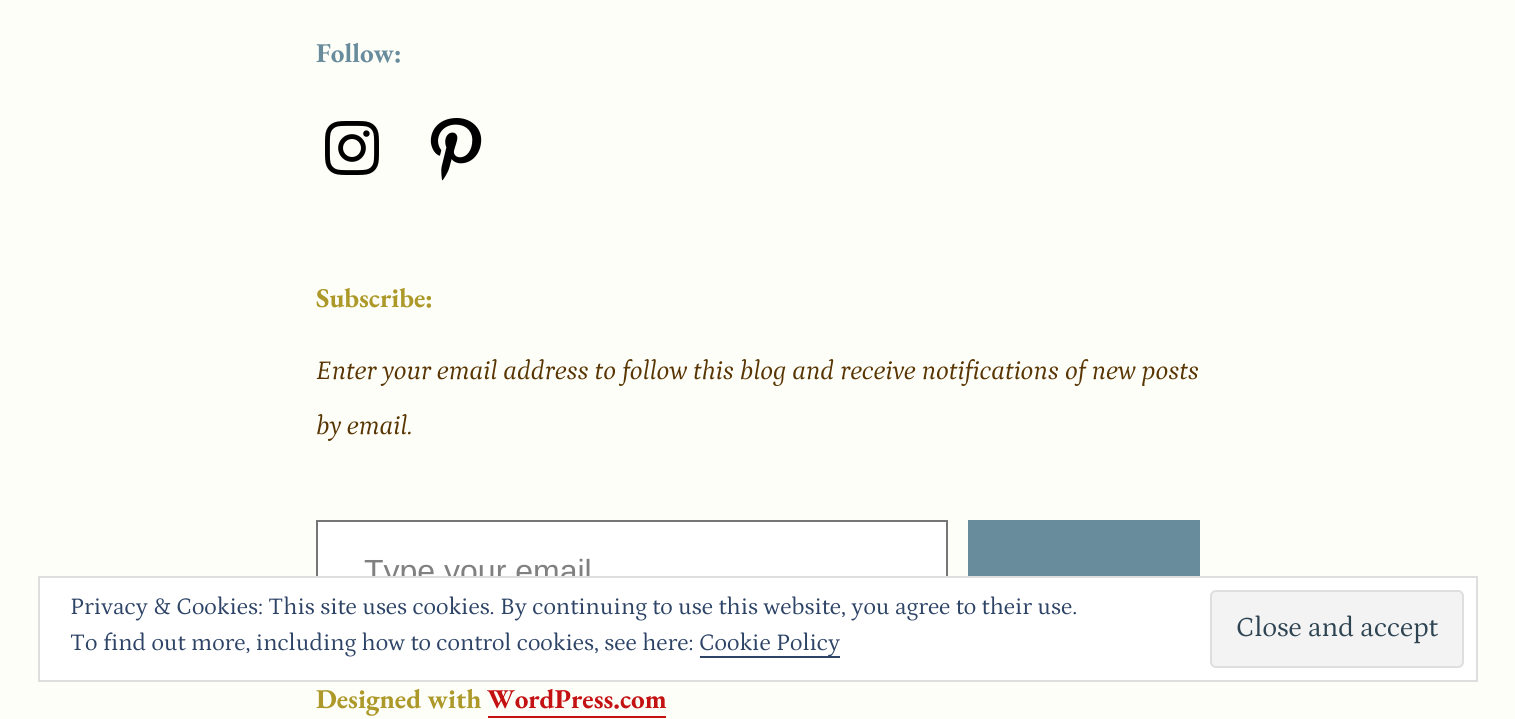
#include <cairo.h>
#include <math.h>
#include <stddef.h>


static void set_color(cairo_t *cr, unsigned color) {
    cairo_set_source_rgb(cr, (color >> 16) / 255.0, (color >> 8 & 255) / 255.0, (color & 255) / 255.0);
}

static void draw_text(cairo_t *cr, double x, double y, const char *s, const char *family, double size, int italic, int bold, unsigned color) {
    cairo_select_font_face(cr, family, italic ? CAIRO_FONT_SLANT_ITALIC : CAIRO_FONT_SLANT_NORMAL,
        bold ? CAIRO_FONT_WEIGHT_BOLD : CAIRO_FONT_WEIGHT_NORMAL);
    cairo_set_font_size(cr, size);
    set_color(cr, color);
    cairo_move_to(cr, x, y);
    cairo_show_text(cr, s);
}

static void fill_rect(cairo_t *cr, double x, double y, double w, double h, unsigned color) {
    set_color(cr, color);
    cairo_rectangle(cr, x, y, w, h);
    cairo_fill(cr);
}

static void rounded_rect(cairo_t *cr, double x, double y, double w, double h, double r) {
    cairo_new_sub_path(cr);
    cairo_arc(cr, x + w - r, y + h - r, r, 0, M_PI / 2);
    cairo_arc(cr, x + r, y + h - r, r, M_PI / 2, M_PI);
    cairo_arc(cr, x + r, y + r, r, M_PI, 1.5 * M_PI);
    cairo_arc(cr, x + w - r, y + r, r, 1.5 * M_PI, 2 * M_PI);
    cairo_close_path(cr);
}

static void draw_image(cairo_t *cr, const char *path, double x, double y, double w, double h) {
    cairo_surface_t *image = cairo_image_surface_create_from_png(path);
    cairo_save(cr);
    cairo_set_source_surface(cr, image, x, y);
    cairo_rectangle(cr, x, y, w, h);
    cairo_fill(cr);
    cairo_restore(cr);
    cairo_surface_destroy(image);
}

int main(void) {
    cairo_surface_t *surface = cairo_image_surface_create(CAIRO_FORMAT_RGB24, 1515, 719);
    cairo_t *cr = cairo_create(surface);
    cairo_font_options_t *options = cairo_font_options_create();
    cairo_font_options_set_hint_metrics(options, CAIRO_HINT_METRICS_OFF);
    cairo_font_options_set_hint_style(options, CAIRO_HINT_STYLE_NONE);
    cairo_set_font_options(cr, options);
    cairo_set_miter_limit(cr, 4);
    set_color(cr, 0xFEFEF8);
    cairo_paint(cr);
    draw_text(cr, 316, 62, "Follow:", "EB Garamond", 27.15, 0, 1, 0x698C9D);
    draw_image(cr, "assets/img1.png", 325, 121, 54, 54);
    draw_image(cr, "assets/img2.png", 430, 118, 52, 63);
    draw_text(cr, 316, 307, "Subscribe:", "EB Garamond", 27.15, 0, 1, 0xAC9929);
    draw_text(cr, 316, 379, "Enter your email address to follow this blog and receive notifications of new posts", "Petrona", 27.15, 1, 0, 0x583503);
    draw_text(cr, 316, 434, "by email.", "Petrona", 27.15, 1, 0, 0x583503);
    fill_rect(cr, 318, 522, 628, 54, 0xFFFFFF);
    cairo_rectangle(cr, 317, 521, 630, 104);
    set_color(cr, 0x767676);
    cairo_stroke(cr);
    draw_text(cr, 364, 582, "Type your email", "Liberation Sans", 32, 0, 0, 0x808080);
    fill_rect(cr, 968, 520, 232, 56, 0x698C9D);
    draw_text(cr, 316, 708, "Designed with", "EB Garamond", 27.15, 0, 1, 0xAC9929);
    draw_text(cr, 487, 708, "WordPress.com", "EB Garamond", 27.15, 0, 1, 0xC41212);
    fill_rect(cr, 488, 716, 178, 2, 0xC41212);
    set_color(cr, 0xFFFFFF);
    cairo_rectangle(cr, 39, 577, 1438, 104);
    cairo_fill_preserve(cr);
    set_color(cr, 0xDEDEDE);
    cairo_stroke(cr);
    draw_text(cr, 70, 614, "Privacy & Cookies: This site uses cookies. By continuing to use this website, you agree to their use.", "Petrona", 24, 0, 0, 0x2E4467);
    draw_text(cr, 70, 650, "To find out more, including how to control cookies, see here:", "Petrona", 24, 0, 0, 0x2E4467);
    fill_rect(cr, 700, 656, 140, 2, 0x2E4467);
    draw_text(cr, 699, 650, "Cookie Policy", "Petrona", 24, 0, 0, 0x2E4467);
    set_color(cr, 0xF3F3F3);
    rounded_rect(cr, 1211, 591, 252, 76, 5);
    cairo_fill_preserve(cr);
    set_color(cr, 0xDEDEDE);
    cairo_stroke(cr);
    draw_text(cr, 1236, 636, "Close and accept", "Petrona", 28, 0, 0, 0x2E4453);
    cairo_surface_write_to_png(surface, "output.png");
    cairo_font_options_destroy(options);
    cairo_destroy(cr);
    cairo_surface_destroy(surface);
    return 0;
}
